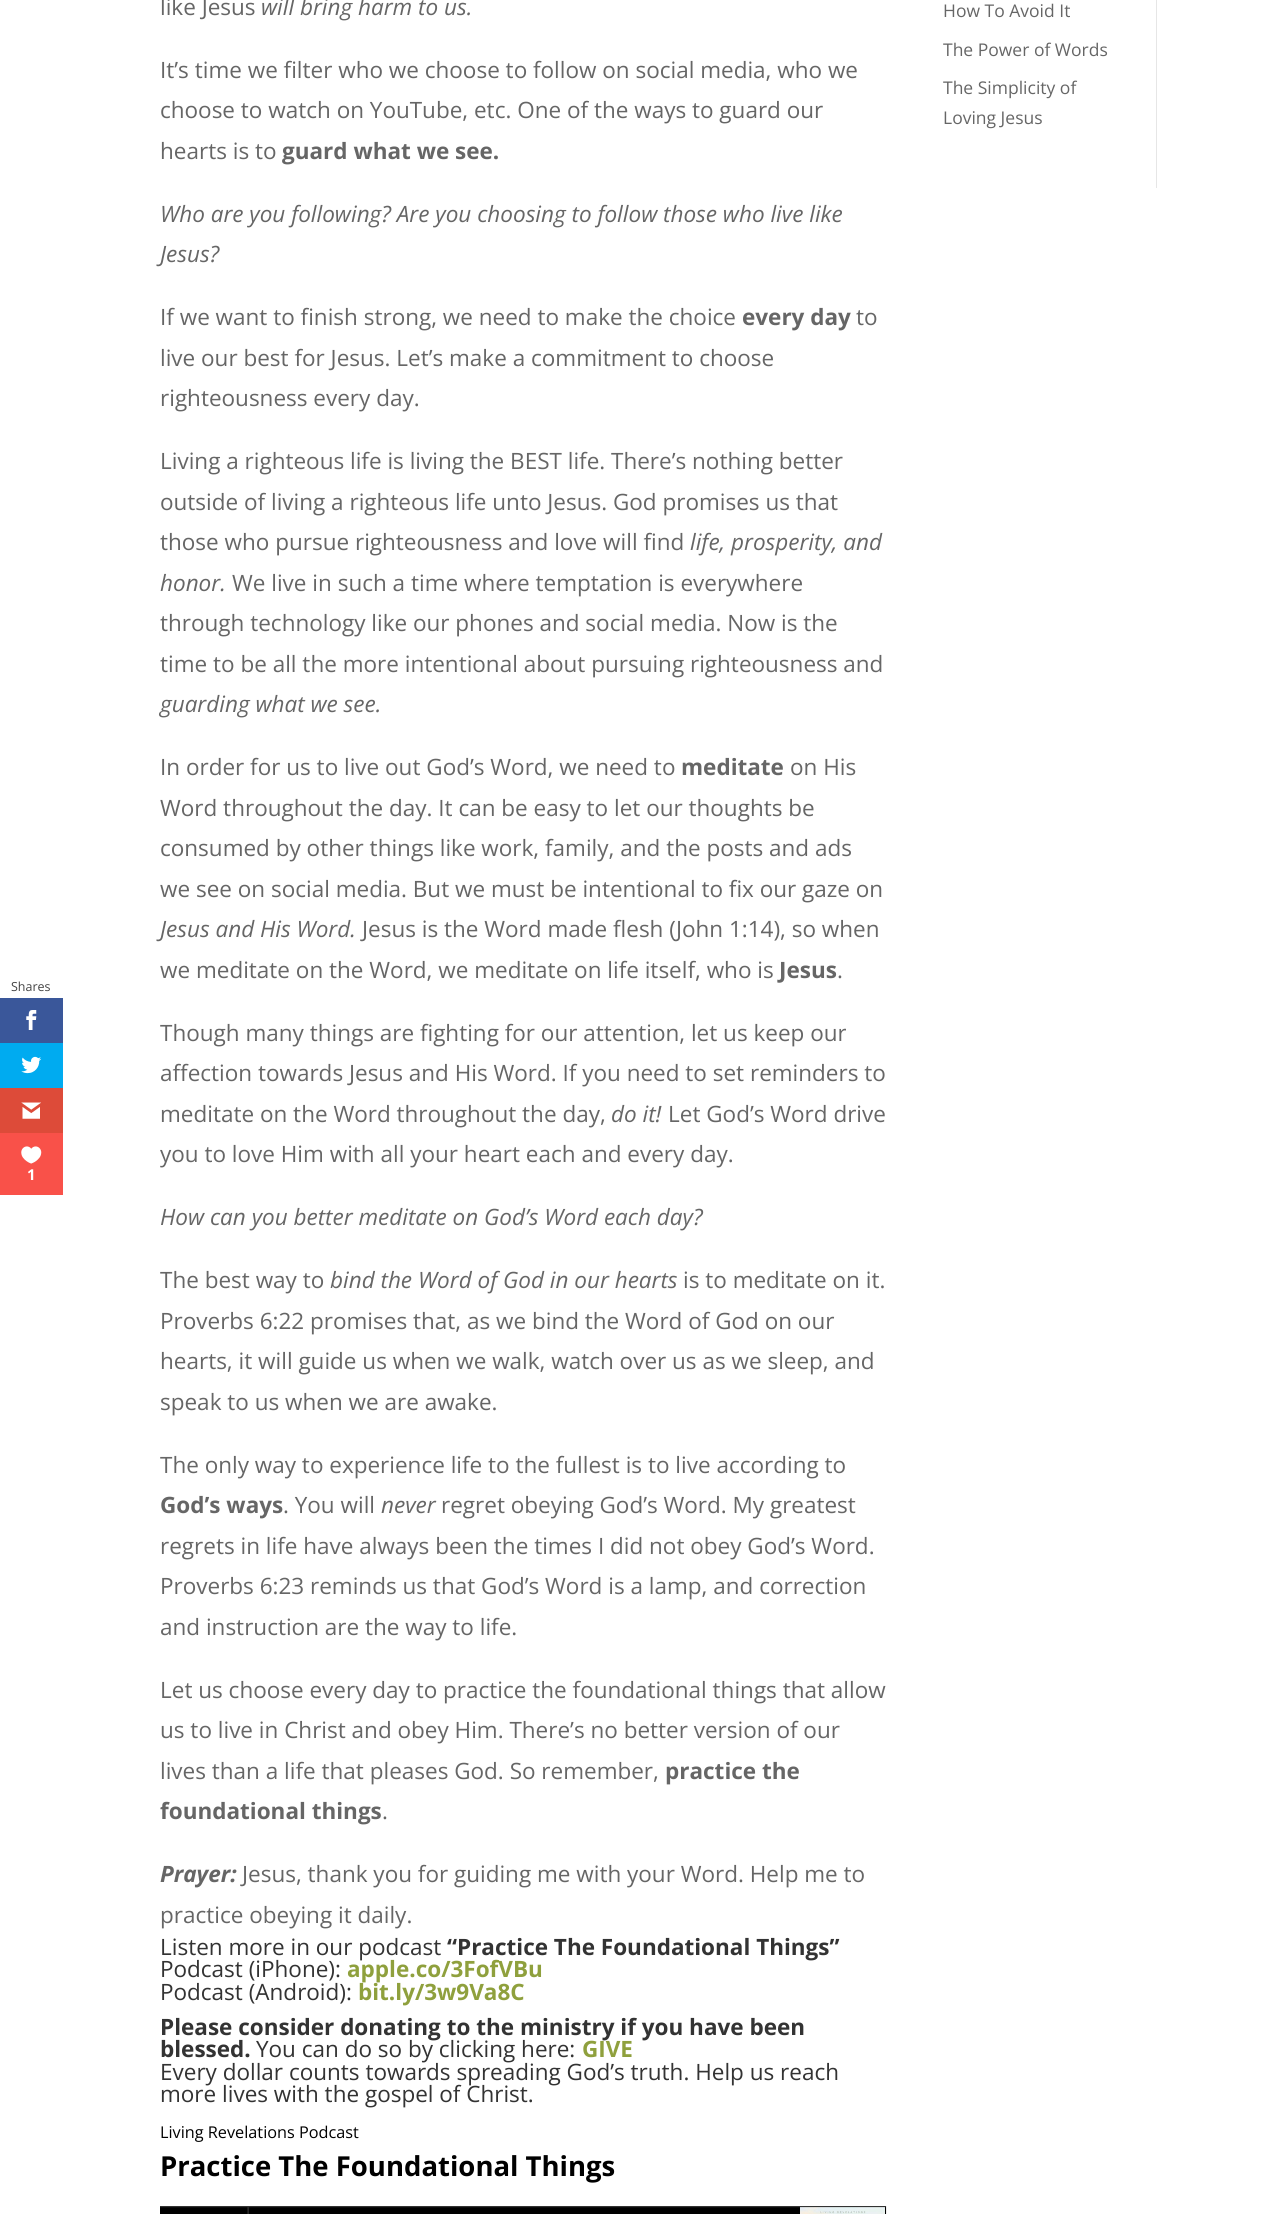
#include <cairo.h>
#include <math.h>
#include <stddef.h>


static void set_color(cairo_t *cr, unsigned color) {
    cairo_set_source_rgb(cr, (color >> 16) / 255.0, (color >> 8 & 255) / 255.0, (color & 255) / 255.0);
}

static void draw_text(cairo_t *cr, double x, double y, const char *s, const char *family, double size, int italic, int bold, unsigned color) {
    cairo_select_font_face(cr, family, italic ? CAIRO_FONT_SLANT_ITALIC : CAIRO_FONT_SLANT_NORMAL,
        bold ? CAIRO_FONT_WEIGHT_BOLD : CAIRO_FONT_WEIGHT_NORMAL);
    cairo_set_font_size(cr, size);
    set_color(cr, color);
    cairo_move_to(cr, x, y);
    cairo_show_text(cr, s);
}

static void fill_rect(cairo_t *cr, double x, double y, double w, double h, unsigned color) {
    set_color(cr, color);
    cairo_rectangle(cr, x, y, w, h);
    cairo_fill(cr);
}

static void draw_image(cairo_t *cr, const char *path, double x, double y, double w, double h) {
    cairo_surface_t *image = cairo_image_surface_create_from_png(path);
    cairo_save(cr);
    cairo_set_source_surface(cr, image, x, y);
    cairo_rectangle(cr, x, y, w, h);
    cairo_fill(cr);
    cairo_restore(cr);
    cairo_surface_destroy(image);
}

int main(void) {
    cairo_surface_t *surface = cairo_image_surface_create(CAIRO_FORMAT_RGB24, 1286, 2214);
    cairo_t *cr = cairo_create(surface);
    cairo_font_options_t *options = cairo_font_options_create();
    cairo_font_options_set_hint_metrics(options, CAIRO_HINT_METRICS_OFF);
    cairo_font_options_set_hint_style(options, CAIRO_HINT_STYLE_NONE);
    cairo_set_font_options(cr, options);
    cairo_set_miter_limit(cr, 4);
    set_color(cr, 0xFFFFFF);
    cairo_paint(cr);
    draw_text(cr, 11, 991, "Shares", "Open Sans", 12.5, 0, 0, 0x444444);
    fill_rect(cr, 0, 998, 63, 45, 0x3A579A);
    draw_image(cr, "assets/img1.png", 26, 1010, 11, 20);
    fill_rect(cr, 0, 1043, 63, 45, 0x00ABF0);
    draw_image(cr, "assets/img2.png", 21, 1056, 21, 18);
    fill_rect(cr, 0, 1088, 63, 45, 0xDD4B39);
    draw_image(cr, "assets/img3.png", 21, 1102, 20, 17);
    fill_rect(cr, 0, 1133, 63, 62, 0xF95149);
    draw_image(cr, "assets/img4.png", 21, 1146, 21, 18);
    draw_text(cr, 27, 1180, "1", "Open Sans", 15, 0, 1, 0xFFFFFF);
    draw_text(cr, 160, 15, "like Jesus", "Open Sans", 22.5, 0, 0, 0x666666);
    draw_text(cr, 261, 15, "will bring harm to us.", "Open Sans", 22.5, 1, 0, 0x666666);
    draw_text(cr, 160, 78, "It’s time we filter who we choose to follow on social media, who we", "Open Sans", 22.5, 0, 0, 0x666666);
    draw_text(cr, 160, 118, "choose to watch on YouTube, etc. One of the ways to guard our", "Open Sans", 22.5, 0, 0, 0x666666);
    draw_text(cr, 160, 159, "hearts is to", "Open Sans", 22.5, 0, 0, 0x666666);
    draw_text(cr, 282, 159, "guard what we see.", "Open Sans", 22.5, 0, 1, 0x666666);
    draw_text(cr, 160, 222, "Who are you following? Are you choosing to follow those who live like", "Open Sans", 22.5, 1, 0, 0x666666);
    draw_text(cr, 160, 262, "Jesus?", "Open Sans", 22.5, 1, 0, 0x666666);
    draw_text(cr, 160, 325, "If we want to finish strong, we need to make the choice", "Open Sans", 22.5, 0, 0, 0x666666);
    draw_text(cr, 742, 325, "every day", "Open Sans", 22.5, 0, 1, 0x666666);
    draw_text(cr, 856, 325, "to", "Open Sans", 22.5, 0, 0, 0x666666);
    draw_text(cr, 160, 366, "live our best for Jesus. Let’s make a commitment to choose", "Open Sans", 22.5, 0, 0, 0x666666);
    draw_text(cr, 160, 406, "righteousness every day.", "Open Sans", 22.5, 0, 0, 0x666666);
    draw_text(cr, 160, 469, "Living a righteous life is living the BEST life. There’s nothing better", "Open Sans", 22.5, 0, 0, 0x666666);
    draw_text(cr, 160, 510, "outside of living a righteous life unto Jesus. God promises us that", "Open Sans", 22.5, 0, 0, 0x666666);
    draw_text(cr, 160, 550, "those who pursue righteousness and love will find", "Open Sans", 22.5, 0, 0, 0x666666);
    draw_text(cr, 690, 550, "life, prosperity, and", "Open Sans", 22.5, 1, 0, 0x666666);
    draw_text(cr, 160, 591, "honor.", "Open Sans", 22.5, 1, 0, 0x666666);
    draw_text(cr, 232, 591, "We live in such a time where temptation is everywhere", "Open Sans", 22.5, 0, 0, 0x666666);
    draw_text(cr, 160, 631, "through technology like our phones and social media. Now is the", "Open Sans", 22.5, 0, 0, 0x666666);
    draw_text(cr, 160, 672, "time to be all the more intentional about pursuing righteousness and", "Open Sans", 22.5, 0, 0, 0x666666);
    draw_text(cr, 160, 712, "guarding what we see.", "Open Sans", 22.5, 1, 0, 0x666666);
    draw_text(cr, 160, 775, "In order for us to live out God’s Word, we need to", "Open Sans", 22.5, 0, 0, 0x666666);
    draw_text(cr, 681, 775, "meditate", "Open Sans", 22.5, 0, 1, 0x666666);
    draw_text(cr, 790, 775, "on His", "Open Sans", 22.5, 0, 0, 0x666666);
    draw_text(cr, 160, 816, "Word throughout the day. It can be easy to let our thoughts be", "Open Sans", 22.5, 0, 0, 0x666666);
    draw_text(cr, 160, 856, "consumed by other things like work, family, and the posts and ads", "Open Sans", 22.5, 0, 0, 0x666666);
    draw_text(cr, 160, 897, "we see on social media. But we must be intentional to fix our gaze on", "Open Sans", 22.5, 0, 0, 0x666666);
    draw_text(cr, 160, 937, "Jesus and His Word.", "Open Sans", 22.5, 1, 0, 0x666666);
    draw_text(cr, 362, 937, "Jesus is the Word made flesh (John 1:14), so when", "Open Sans", 22.5, 0, 0, 0x666666);
    draw_text(cr, 160, 978, "we meditate on the Word, we meditate on life itself, who is", "Open Sans", 22.5, 0, 0, 0x666666);
    draw_text(cr, 779, 978, "Jesus", "Open Sans", 22.5, 0, 1, 0x666666);
    draw_text(cr, 837, 978, ".", "Open Sans", 22.5, 0, 0, 0x666666);
    draw_text(cr, 160, 1041, "Though many things are fighting for our attention, let us keep our", "Open Sans", 22.5, 0, 0, 0x666666);
    draw_text(cr, 160, 1081, "affection towards Jesus and His Word. If you need to set reminders to", "Open Sans", 22.5, 0, 0, 0x666666);
    draw_text(cr, 160, 1122, "meditate on the Word throughout the day,", "Open Sans", 22.5, 0, 0, 0x666666);
    draw_text(cr, 611, 1122, "do it!", "Open Sans", 22.5, 1, 0, 0x666666);
    draw_text(cr, 668, 1122, "Let God’s Word drive", "Open Sans", 22.5, 0, 0, 0x666666);
    draw_text(cr, 160, 1162, "you to love Him with all your heart each and every day.", "Open Sans", 22.5, 0, 0, 0x666666);
    draw_text(cr, 160, 1225, "How can you better meditate on God’s Word each day?", "Open Sans", 22.5, 1, 0, 0x666666);
    draw_text(cr, 160, 1288, "The best way to", "Open Sans", 22.5, 0, 0, 0x666666);
    draw_text(cr, 330, 1288, "bind the Word of God in our hearts", "Open Sans", 22.5, 1, 0, 0x666666);
    draw_text(cr, 683, 1288, "is to meditate on it.", "Open Sans", 22.5, 0, 0, 0x666666);
    draw_text(cr, 160, 1329, "Proverbs 6:22 promises that, as we bind the Word of God on our", "Open Sans", 22.5, 0, 0, 0x666666);
    draw_text(cr, 160, 1369, "hearts, it will guide us when we walk, watch over us as we sleep, and", "Open Sans", 22.5, 0, 0, 0x666666);
    draw_text(cr, 160, 1410, "speak to us when we are awake.", "Open Sans", 22.5, 0, 0, 0x666666);
    draw_text(cr, 160, 1473, "The only way to experience life to the fullest is to live according to", "Open Sans", 22.5, 0, 0, 0x666666);
    draw_text(cr, 160, 1513, "God’s ways", "Open Sans", 22.5, 0, 1, 0x666666);
    draw_text(cr, 283, 1513, ". You will", "Open Sans", 22.5, 0, 0, 0x666666);
    draw_text(cr, 381, 1513, "never", "Open Sans", 22.5, 1, 0, 0x666666);
    draw_text(cr, 441, 1513, "regret obeying God’s Word. My greatest", "Open Sans", 22.5, 0, 0, 0x666666);
    draw_text(cr, 160, 1554, "regrets in life have always been the times I did not obey God’s Word.", "Open Sans", 22.5, 0, 0, 0x666666);
    draw_text(cr, 160, 1594, "Proverbs 6:23 reminds us that God’s Word is a lamp, and correction", "Open Sans", 22.5, 0, 0, 0x666666);
    draw_text(cr, 160, 1635, "and instruction are the way to life.", "Open Sans", 22.5, 0, 0, 0x666666);
    draw_text(cr, 160, 1698, "Let us choose every day to practice the foundational things that allow", "Open Sans", 22.5, 0, 0, 0x666666);
    draw_text(cr, 160, 1738, "us to live in Christ and obey Him. There’s no better version of our", "Open Sans", 22.5, 0, 0, 0x666666);
    draw_text(cr, 160, 1779, "lives than a life that pleases God. So remember,", "Open Sans", 22.5, 0, 0, 0x666666);
    draw_text(cr, 665, 1779, "practice the", "Open Sans", 22.5, 0, 1, 0x666666);
    draw_text(cr, 160, 1819, "foundational things", "Open Sans", 22.5, 0, 1, 0x666666);
    draw_text(cr, 382, 1819, ".", "Open Sans", 22.5, 0, 0, 0x666666);
    draw_text(cr, 160, 1882, "Prayer:", "Open Sans", 22.5, 1, 1, 0x666666);
    draw_text(cr, 242, 1882, "Jesus, thank you for guiding me with your Word. Help me to", "Open Sans", 22.5, 0, 0, 0x666666);
    draw_text(cr, 160, 1923, "practice obeying it daily.", "Open Sans", 22.5, 0, 0, 0x666666);
    draw_text(cr, 160, 1955, "Listen more in our podcast", "Open Sans", 22.5, 0, 0, 0x333333);
    draw_text(cr, 447, 1955, "“Practice The Foundational Things”", "Open Sans", 22.5, 0, 1, 0x333333);
    draw_text(cr, 160, 1977, "Podcast (iPhone):", "Open Sans", 22.5, 0, 0, 0x333333);
    draw_text(cr, 347, 1977, "apple.co/3FofVBu", "Open Sans", 22.5, 0, 1, 0x8FA03D);
    draw_text(cr, 160, 2000, "Podcast (Android):", "Open Sans", 22.5, 0, 0, 0x333333);
    draw_text(cr, 358, 2000, "bit.ly/3w9Va8C", "Open Sans", 22.5, 0, 1, 0x8FA03D);
    draw_text(cr, 160, 2035, "Please consider donating to the ministry if you have been", "Open Sans", 22.5, 0, 1, 0x333333);
    draw_text(cr, 160, 2057, "blessed.", "Open Sans", 22.5, 0, 1, 0x333333);
    draw_text(cr, 256, 2057, "You can do so by clicking here:", "Open Sans", 22.5, 0, 0, 0x333333);
    draw_text(cr, 582, 2057, "GIVE", "Open Sans", 22.5, 0, 1, 0x8FA03D);
    draw_text(cr, 160, 2080, "Every dollar counts towards spreading God’s truth. Help us reach", "Open Sans", 22.5, 0, 0, 0x333333);
    draw_text(cr, 160, 2102, "more lives with the gospel of Christ.", "Open Sans", 22.5, 0, 0, 0x333333);
    draw_text(cr, 160, 2138, "Living Revelations Podcast", "Open Sans", 16.25, 0, 0, 0x000000);
    draw_text(cr, 160, 2176, "Practice The Foundational Things", "Open Sans", 27.5, 0, 1, 0x000000);
    draw_image(cr, "assets/img5.png", 160, 2206, 727, 8);
    fill_rect(cr, 1156, 0, 1, 188, 0xE6E6E6);
    draw_text(cr, 943, 17, "How To Avoid It", "Open Sans", 17.5, 0, 0, 0x666666);
    draw_text(cr, 943, 56, "The Power of Words", "Open Sans", 17.5, 0, 0, 0x666666);
    draw_text(cr, 943, 94, "The Simplicity of", "Open Sans", 17.5, 0, 0, 0x666666);
    draw_text(cr, 943, 124, "Loving Jesus", "Open Sans", 17.5, 0, 0, 0x666666);
    cairo_surface_write_to_png(surface, "output.png");
    cairo_font_options_destroy(options);
    cairo_destroy(cr);
    cairo_surface_destroy(surface);
    return 0;
}
